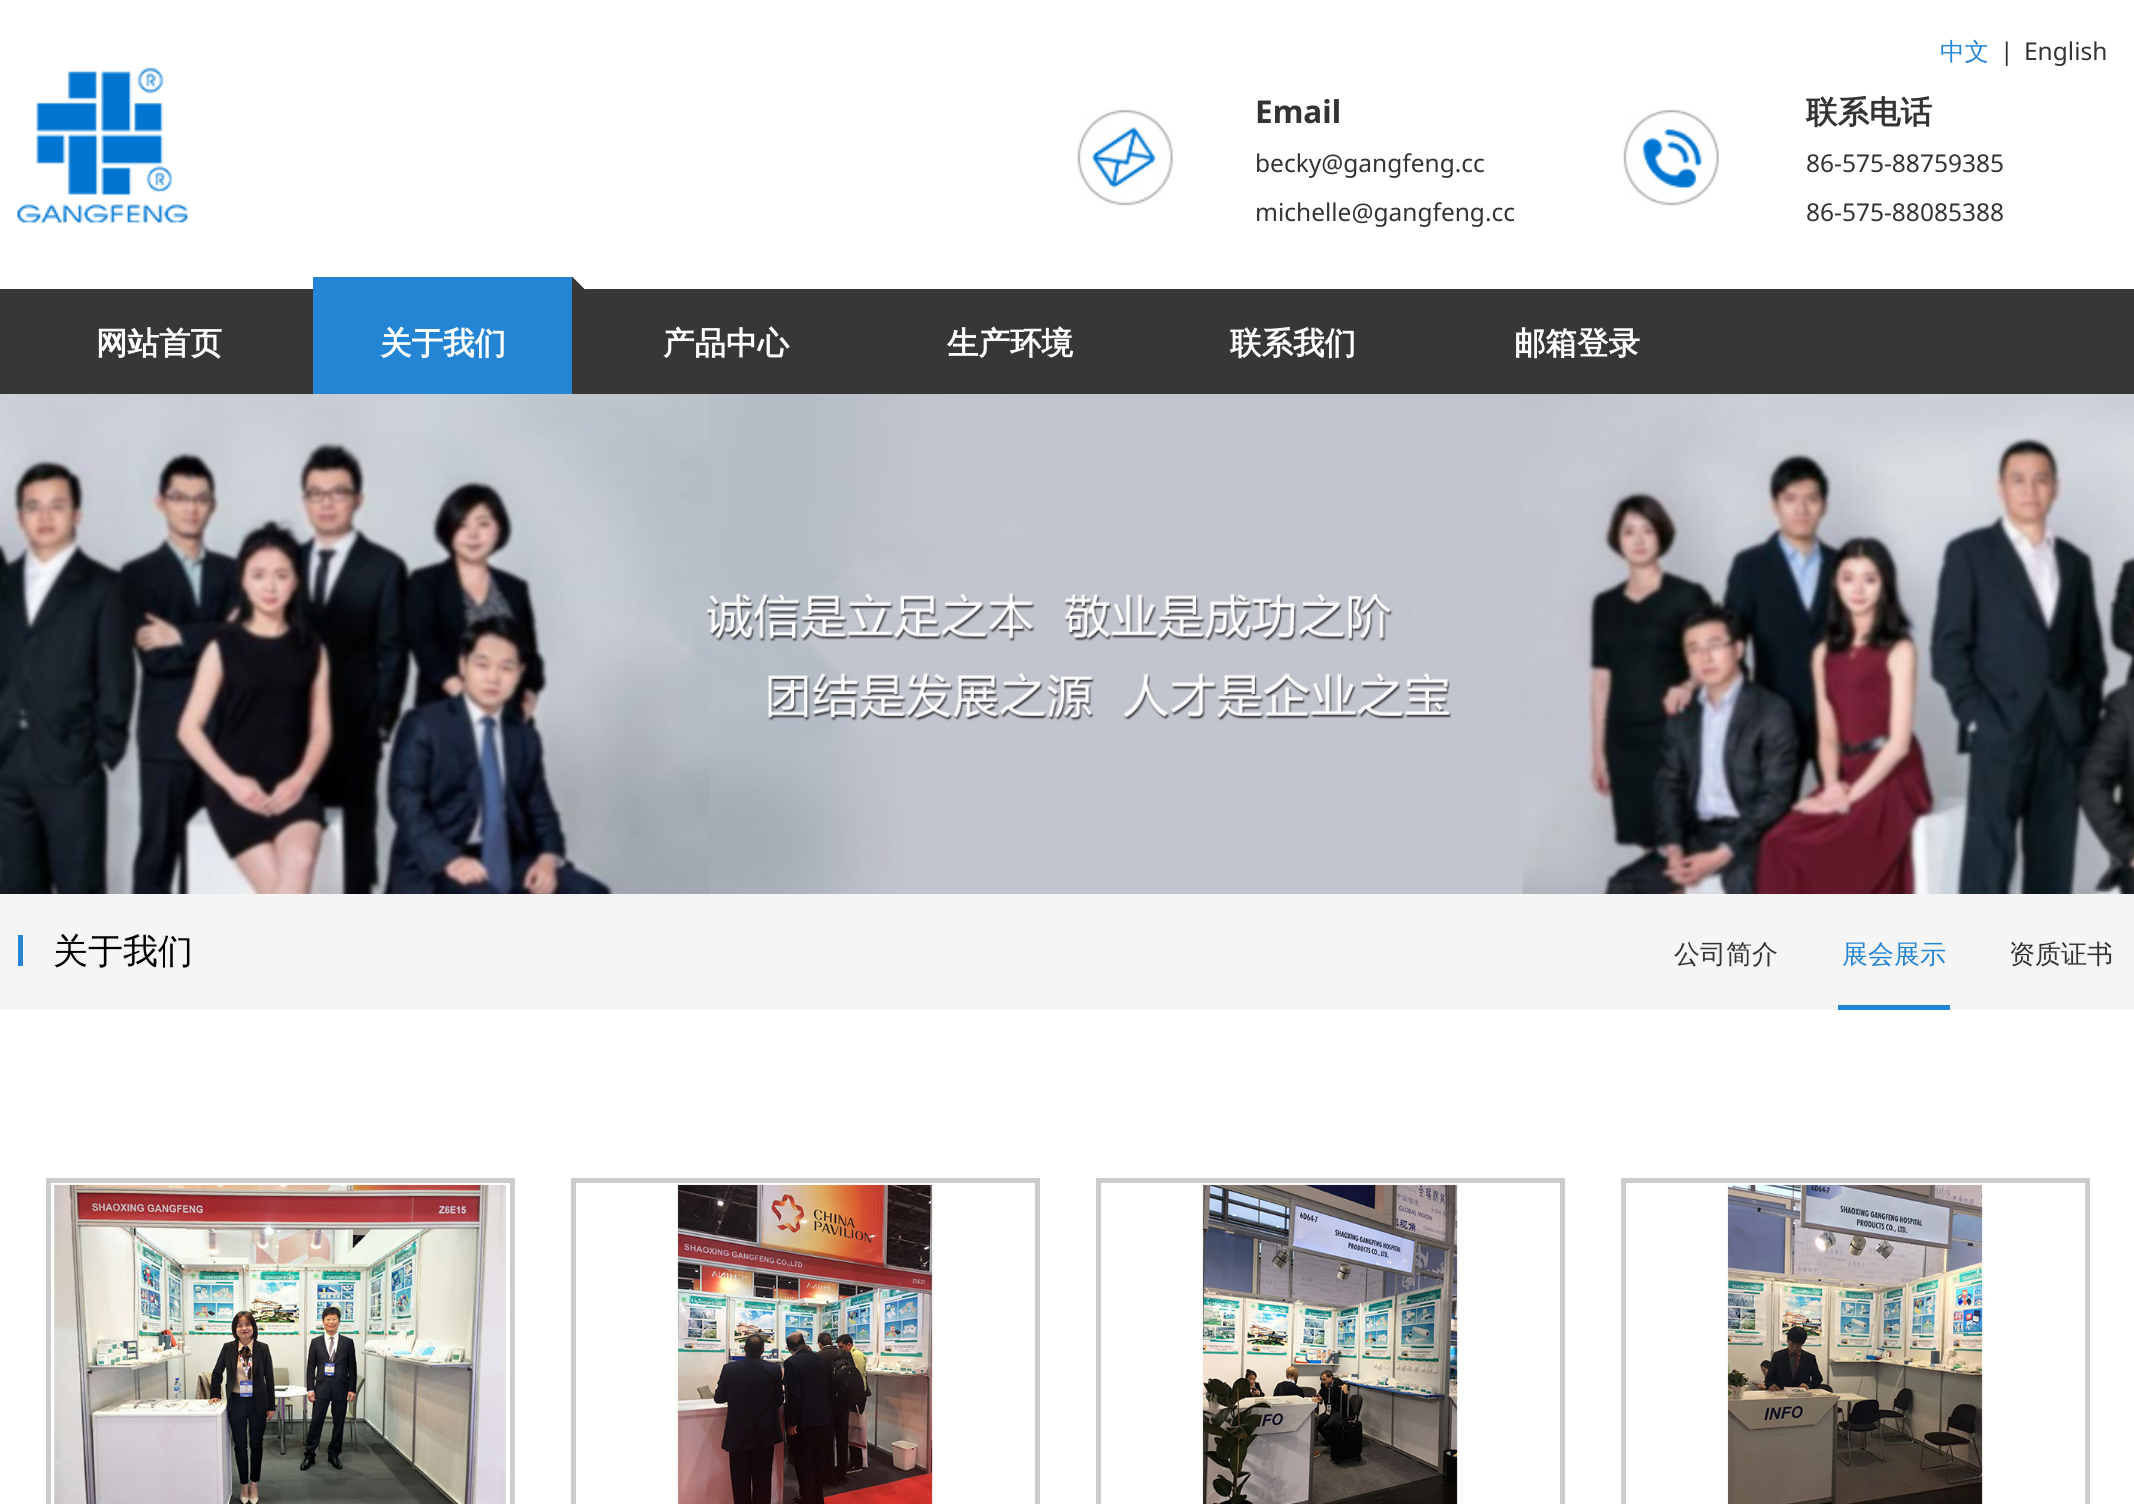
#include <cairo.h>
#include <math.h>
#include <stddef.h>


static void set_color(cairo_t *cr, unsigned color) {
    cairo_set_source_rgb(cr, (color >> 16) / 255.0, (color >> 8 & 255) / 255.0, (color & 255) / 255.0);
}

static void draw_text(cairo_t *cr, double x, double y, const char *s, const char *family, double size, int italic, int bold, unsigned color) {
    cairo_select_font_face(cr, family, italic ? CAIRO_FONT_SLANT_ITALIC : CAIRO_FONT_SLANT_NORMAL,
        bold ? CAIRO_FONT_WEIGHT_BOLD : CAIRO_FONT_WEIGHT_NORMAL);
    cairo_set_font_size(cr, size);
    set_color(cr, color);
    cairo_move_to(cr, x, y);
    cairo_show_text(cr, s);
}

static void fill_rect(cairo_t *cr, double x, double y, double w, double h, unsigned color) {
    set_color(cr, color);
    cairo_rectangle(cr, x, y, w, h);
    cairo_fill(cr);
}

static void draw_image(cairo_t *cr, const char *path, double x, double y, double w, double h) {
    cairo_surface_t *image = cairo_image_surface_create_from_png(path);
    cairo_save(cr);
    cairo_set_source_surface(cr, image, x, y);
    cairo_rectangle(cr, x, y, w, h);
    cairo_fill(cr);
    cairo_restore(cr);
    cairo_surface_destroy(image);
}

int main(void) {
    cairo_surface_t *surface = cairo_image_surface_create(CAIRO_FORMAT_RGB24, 2134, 1504);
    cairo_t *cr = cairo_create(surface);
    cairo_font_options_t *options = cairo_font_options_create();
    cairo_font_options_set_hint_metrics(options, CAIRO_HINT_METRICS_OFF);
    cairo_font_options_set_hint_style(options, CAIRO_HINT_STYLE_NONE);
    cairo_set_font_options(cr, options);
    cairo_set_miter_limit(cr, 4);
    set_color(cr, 0xFFFFFF);
    cairo_paint(cr);
    draw_image(cr, "assets/img1.png", 17, 67, 171, 156);
    draw_text(cr, 1940, 60, "中文", "WenQuanYi Zen Hei Medium", 24.5, 0, 0, 0x2485D4);
    draw_text(cr, 2000, 60, "|", "Noto Sans", 24.5, 0, 0, 0x333333);
    draw_text(cr, 2024, 60, "English", "Noto Sans", 24.5, 0, 0, 0x333333);
    draw_image(cr, "assets/img2.png", 1077, 109, 96, 97);
    draw_text(cr, 1255, 123, "Email", "Noto Sans", 31.5, 0, 1, 0x333333);
    draw_text(cr, 1255, 172, "becky@gangfeng.cc", "Noto Sans", 24.5, 0, 0, 0x333333);
    draw_text(cr, 1255, 221, "michelle@gangfeng.cc", "Noto Sans", 24.5, 0, 0, 0x333333);
    draw_image(cr, "assets/img3.png", 1623, 109, 96, 97);
    draw_text(cr, 1806, 123, "联系电话", "WenQuanYi Zen Hei", 31.5, 0, 1, 0x333333);
    draw_text(cr, 1806, 172, "86-575-88759385", "Noto Sans", 24.5, 0, 0, 0x333333);
    draw_text(cr, 1806, 221, "86-575-88085388", "Noto Sans", 24.5, 0, 0, 0x333333);
    fill_rect(cr, 0, 289, 2134, 105, 0x393636);
    draw_text(cr, 96, 354, "网站首页", "WenQuanYi Zen Hei", 31.5, 0, 1, 0xFFFFFF);
    fill_rect(cr, 313, 277, 259, 117, 0x2485D4);
    set_color(cr, 0x393636);
    cairo_new_path(cr);
    cairo_move_to(cr, 584.5, 289);
    cairo_line_to(cr, 572, 289);
    cairo_line_to(cr, 572, 276.5);
    cairo_close_path(cr);
    cairo_fill(cr);
    draw_text(cr, 380, 354, "关于我们", "WenQuanYi Zen Hei", 31.5, 0, 1, 0xFFFFFF);
    draw_text(cr, 663, 354, "产品中心", "WenQuanYi Zen Hei", 31.5, 0, 1, 0xFFFFFF);
    draw_text(cr, 947, 354, "生产环境", "WenQuanYi Zen Hei", 31.5, 0, 1, 0xFFFFFF);
    draw_text(cr, 1230, 354, "联系我们", "WenQuanYi Zen Hei", 31.5, 0, 1, 0xFFFFFF);
    draw_text(cr, 1514, 354, "邮箱登录", "WenQuanYi Zen Hei", 31.5, 0, 1, 0xFFFFFF);
    draw_image(cr, "assets/img4.png", 0, 394, 2134, 500);
    fill_rect(cr, 0, 894, 2134, 116, 0xF5F5F5);
    fill_rect(cr, 18, 935, 5, 31, 0x2485D4);
    draw_text(cr, 53, 963, "关于我们", "WenQuanYi Zen Hei Medium", 35, 0, 0, 0x000000);
    draw_text(cr, 1674, 963, "公司简介", "WenQuanYi Zen Hei Medium", 26, 0, 0, 0x333333);
    draw_text(cr, 1842, 963, "展会展示", "WenQuanYi Zen Hei Medium", 26, 0, 0, 0x2485D4);
    fill_rect(cr, 1838, 1005, 112, 5, 0x2485D4);
    draw_text(cr, 2009, 963, "资质证书", "WenQuanYi Zen Hei Medium", 26, 0, 0, 0x333333);
    cairo_rectangle(cr, 48.5, 1180.5, 464, 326);
    set_color(cr, 0xCCCCCC);
    cairo_set_line_width(cr, 5);
    cairo_stroke(cr);
    draw_image(cr, "assets/img5.png", 54, 1184, 452, 320);
    cairo_rectangle(cr, 573.5, 1180.5, 464, 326);
    cairo_stroke(cr);
    draw_image(cr, "assets/img6.png", 676, 1184, 258, 320);
    cairo_rectangle(cr, 1098.5, 1180.5, 464, 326);
    cairo_stroke(cr);
    draw_image(cr, "assets/img7.png", 1200, 1184, 260, 320);
    cairo_rectangle(cr, 1623.5, 1180.5, 464, 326);
    cairo_stroke(cr);
    draw_image(cr, "assets/img8.png", 1726, 1184, 259, 320);
    cairo_surface_write_to_png(surface, "output.png");
    cairo_font_options_destroy(options);
    cairo_destroy(cr);
    cairo_surface_destroy(surface);
    return 0;
}
